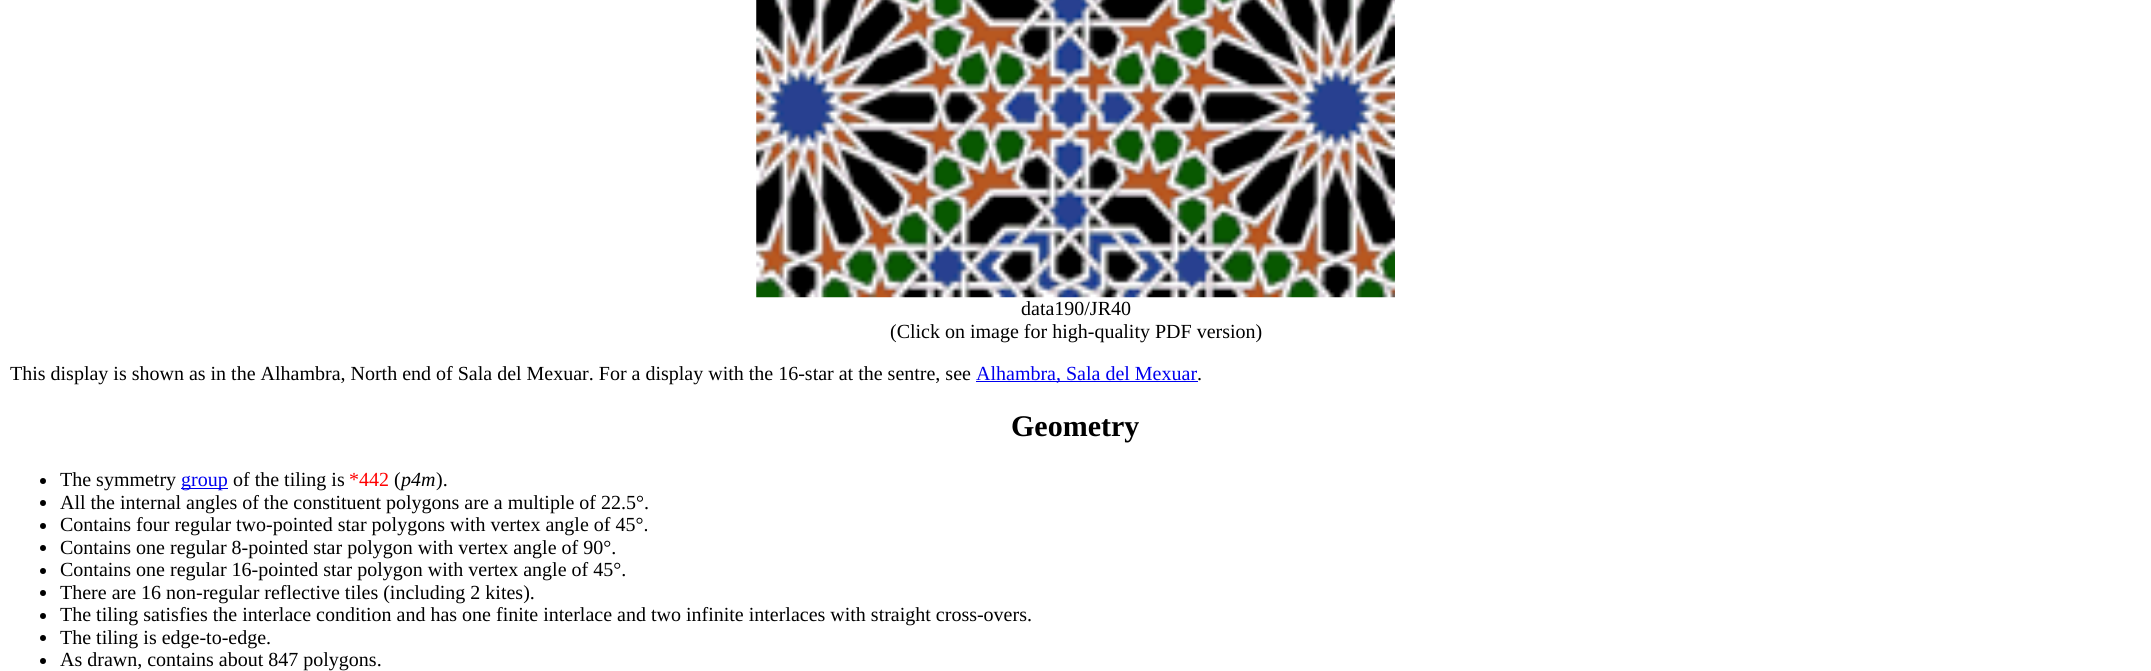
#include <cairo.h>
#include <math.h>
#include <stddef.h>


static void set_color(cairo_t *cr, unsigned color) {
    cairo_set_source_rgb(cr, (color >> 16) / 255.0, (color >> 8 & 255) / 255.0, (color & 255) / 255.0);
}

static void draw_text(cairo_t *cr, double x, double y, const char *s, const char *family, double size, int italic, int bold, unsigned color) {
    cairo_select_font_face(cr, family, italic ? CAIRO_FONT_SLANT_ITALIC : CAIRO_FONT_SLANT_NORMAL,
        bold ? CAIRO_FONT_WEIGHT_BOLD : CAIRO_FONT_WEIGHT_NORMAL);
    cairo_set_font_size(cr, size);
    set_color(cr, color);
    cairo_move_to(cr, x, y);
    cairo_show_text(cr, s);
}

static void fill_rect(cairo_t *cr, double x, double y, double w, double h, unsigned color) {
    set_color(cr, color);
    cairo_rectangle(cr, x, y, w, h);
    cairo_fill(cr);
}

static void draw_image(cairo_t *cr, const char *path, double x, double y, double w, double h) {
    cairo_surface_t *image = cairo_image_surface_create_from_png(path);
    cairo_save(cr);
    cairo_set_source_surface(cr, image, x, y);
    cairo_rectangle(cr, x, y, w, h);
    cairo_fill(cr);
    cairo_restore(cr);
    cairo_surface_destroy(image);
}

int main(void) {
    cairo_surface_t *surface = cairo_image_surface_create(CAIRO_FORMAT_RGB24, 2151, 671);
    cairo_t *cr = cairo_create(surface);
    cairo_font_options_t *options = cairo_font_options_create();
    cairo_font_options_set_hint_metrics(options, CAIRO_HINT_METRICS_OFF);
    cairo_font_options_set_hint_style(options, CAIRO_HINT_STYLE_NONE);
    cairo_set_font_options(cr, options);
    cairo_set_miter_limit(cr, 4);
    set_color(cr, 0xFFFFFF);
    cairo_paint(cr);
    draw_image(cr, "assets/img1.png", 756, 0, 639, 298);
    draw_text(cr, 1021, 315, "data190/JR40", "Liberation Serif", 20, 0, 0, 0x000000);
    draw_text(cr, 890, 338, "(Click on image for high-quality PDF version)", "Liberation Serif", 20, 0, 0, 0x000000);
    draw_text(cr, 10, 380, "This display is shown as in the Alhambra, North end of Sala del Mexuar. For a display with the 16-star at the sentre, see", "Liberation Serif", 20, 0, 0, 0x000000);
    fill_rect(cr, 976, 381, 222, 1, 0x0000EE);
    draw_text(cr, 976, 380, "Alhambra, Sala del Mexuar", "Liberation Serif", 20, 0, 0, 0x0000EE);
    draw_text(cr, 1197, 380, ".", "Liberation Serif", 20, 0, 0, 0x000000);
    draw_text(cr, 1011, 436, "Geometry", "Liberation Serif", 30, 0, 1, 0x000000);
    cairo_new_path(cr);
    cairo_arc(cr, 43, 481, 3, 0, 2 * M_PI);
    cairo_fill(cr);
    draw_text(cr, 60, 486, "The symmetry", "Liberation Serif", 20, 0, 0, 0x000000);
    fill_rect(cr, 181, 488, 47, 1, 0x0000EE);
    draw_text(cr, 181, 486, "group", "Liberation Serif", 20, 0, 0, 0x0000EE);
    draw_text(cr, 233, 486, "of the tiling is", "Liberation Serif", 20, 0, 0, 0x000000);
    draw_text(cr, 349, 486, "*442", "Liberation Serif", 20, 0, 0, 0xFF0000);
    draw_text(cr, 394, 486, "(", "Liberation Serif", 20, 0, 0, 0x000000);
    draw_text(cr, 401, 486, "p4m", "Liberation Serif", 20, 1, 0, 0x000000);
    draw_text(cr, 436, 486, ").", "Liberation Serif", 20, 0, 0, 0x000000);
    cairo_new_path(cr);
    cairo_arc(cr, 43, 503, 3, 0, 2 * M_PI);
    cairo_fill(cr);
    draw_text(cr, 60, 509, "All the internal angles of the constituent polygons are a multiple of 22.5°.", "Liberation Serif", 20, 0, 0, 0x000000);
    cairo_new_path(cr);
    cairo_arc(cr, 43, 526, 3, 0, 2 * M_PI);
    cairo_fill(cr);
    draw_text(cr, 60, 531, "Contains four regular two-pointed star polygons with vertex angle of 45°.", "Liberation Serif", 20, 0, 0, 0x000000);
    cairo_new_path(cr);
    cairo_arc(cr, 43, 548, 3, 0, 2 * M_PI);
    cairo_fill(cr);
    draw_text(cr, 60, 554, "Contains one regular 8-pointed star polygon with vertex angle of 90°.", "Liberation Serif", 20, 0, 0, 0x000000);
    cairo_new_path(cr);
    cairo_arc(cr, 43, 571, 3, 0, 2 * M_PI);
    cairo_fill(cr);
    draw_text(cr, 60, 576, "Contains one regular 16-pointed star polygon with vertex angle of 45°.", "Liberation Serif", 20, 0, 0, 0x000000);
    cairo_new_path(cr);
    cairo_arc(cr, 43, 593, 3, 0, 2 * M_PI);
    cairo_fill(cr);
    draw_text(cr, 60, 599, "There are 16 non-regular reflective tiles (including 2 kites).", "Liberation Serif", 20, 0, 0, 0x000000);
    cairo_new_path(cr);
    cairo_arc(cr, 43, 616, 3, 0, 2 * M_PI);
    cairo_fill(cr);
    draw_text(cr, 60, 621, "The tiling satisfies the interlace condition and has one finite interlace and two infinite interlaces with straight cross-overs.", "Liberation Serif", 20, 0, 0, 0x000000);
    cairo_new_path(cr);
    cairo_arc(cr, 43, 638, 3, 0, 2 * M_PI);
    cairo_fill(cr);
    draw_text(cr, 60, 644, "The tiling is edge-to-edge.", "Liberation Serif", 20, 0, 0, 0x000000);
    cairo_new_path(cr);
    cairo_arc(cr, 43, 661, 3, 0, 2 * M_PI);
    cairo_fill(cr);
    draw_text(cr, 60, 666, "As drawn, contains about 847 polygons.", "Liberation Serif", 20, 0, 0, 0x000000);
    cairo_surface_write_to_png(surface, "output.png");
    cairo_font_options_destroy(options);
    cairo_destroy(cr);
    cairo_surface_destroy(surface);
    return 0;
}
